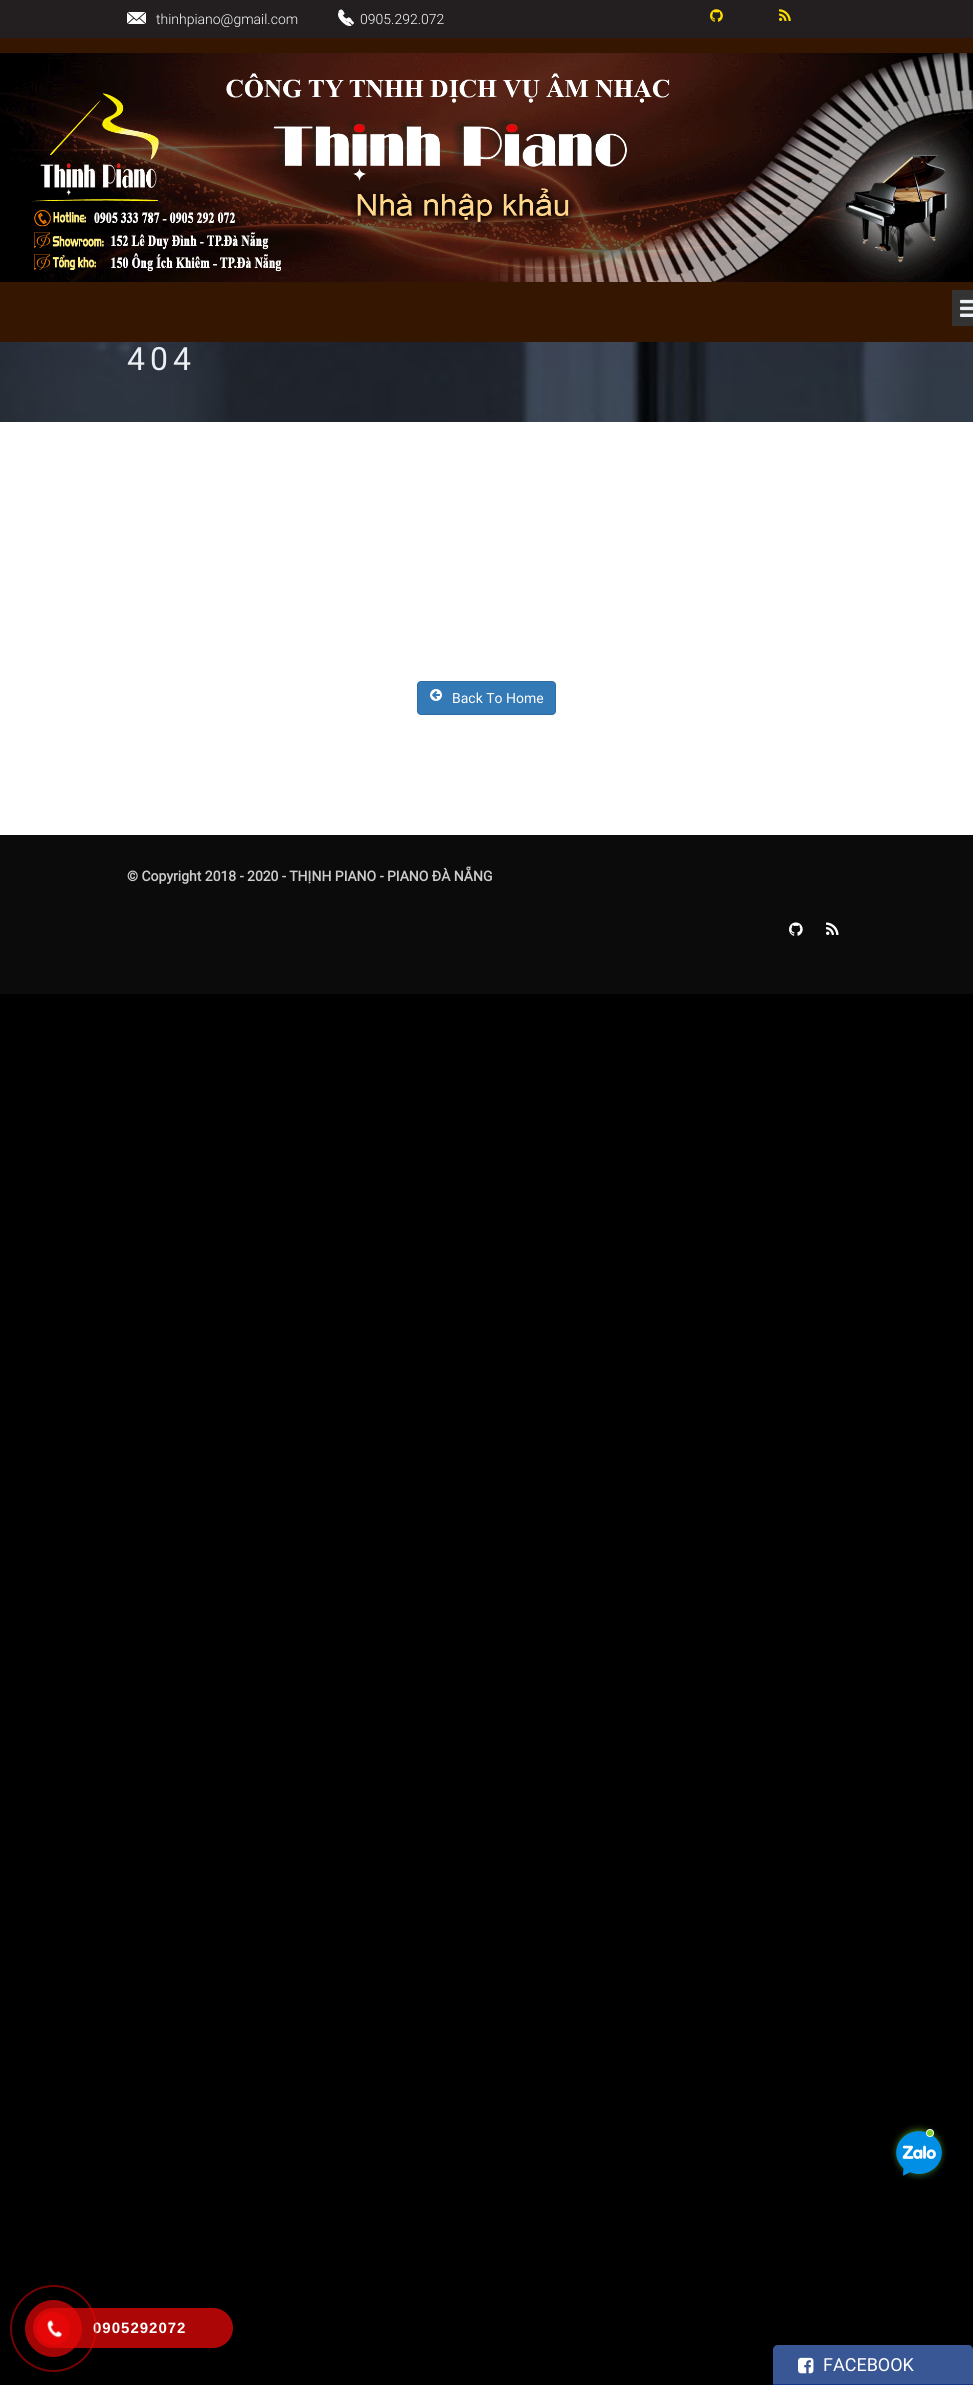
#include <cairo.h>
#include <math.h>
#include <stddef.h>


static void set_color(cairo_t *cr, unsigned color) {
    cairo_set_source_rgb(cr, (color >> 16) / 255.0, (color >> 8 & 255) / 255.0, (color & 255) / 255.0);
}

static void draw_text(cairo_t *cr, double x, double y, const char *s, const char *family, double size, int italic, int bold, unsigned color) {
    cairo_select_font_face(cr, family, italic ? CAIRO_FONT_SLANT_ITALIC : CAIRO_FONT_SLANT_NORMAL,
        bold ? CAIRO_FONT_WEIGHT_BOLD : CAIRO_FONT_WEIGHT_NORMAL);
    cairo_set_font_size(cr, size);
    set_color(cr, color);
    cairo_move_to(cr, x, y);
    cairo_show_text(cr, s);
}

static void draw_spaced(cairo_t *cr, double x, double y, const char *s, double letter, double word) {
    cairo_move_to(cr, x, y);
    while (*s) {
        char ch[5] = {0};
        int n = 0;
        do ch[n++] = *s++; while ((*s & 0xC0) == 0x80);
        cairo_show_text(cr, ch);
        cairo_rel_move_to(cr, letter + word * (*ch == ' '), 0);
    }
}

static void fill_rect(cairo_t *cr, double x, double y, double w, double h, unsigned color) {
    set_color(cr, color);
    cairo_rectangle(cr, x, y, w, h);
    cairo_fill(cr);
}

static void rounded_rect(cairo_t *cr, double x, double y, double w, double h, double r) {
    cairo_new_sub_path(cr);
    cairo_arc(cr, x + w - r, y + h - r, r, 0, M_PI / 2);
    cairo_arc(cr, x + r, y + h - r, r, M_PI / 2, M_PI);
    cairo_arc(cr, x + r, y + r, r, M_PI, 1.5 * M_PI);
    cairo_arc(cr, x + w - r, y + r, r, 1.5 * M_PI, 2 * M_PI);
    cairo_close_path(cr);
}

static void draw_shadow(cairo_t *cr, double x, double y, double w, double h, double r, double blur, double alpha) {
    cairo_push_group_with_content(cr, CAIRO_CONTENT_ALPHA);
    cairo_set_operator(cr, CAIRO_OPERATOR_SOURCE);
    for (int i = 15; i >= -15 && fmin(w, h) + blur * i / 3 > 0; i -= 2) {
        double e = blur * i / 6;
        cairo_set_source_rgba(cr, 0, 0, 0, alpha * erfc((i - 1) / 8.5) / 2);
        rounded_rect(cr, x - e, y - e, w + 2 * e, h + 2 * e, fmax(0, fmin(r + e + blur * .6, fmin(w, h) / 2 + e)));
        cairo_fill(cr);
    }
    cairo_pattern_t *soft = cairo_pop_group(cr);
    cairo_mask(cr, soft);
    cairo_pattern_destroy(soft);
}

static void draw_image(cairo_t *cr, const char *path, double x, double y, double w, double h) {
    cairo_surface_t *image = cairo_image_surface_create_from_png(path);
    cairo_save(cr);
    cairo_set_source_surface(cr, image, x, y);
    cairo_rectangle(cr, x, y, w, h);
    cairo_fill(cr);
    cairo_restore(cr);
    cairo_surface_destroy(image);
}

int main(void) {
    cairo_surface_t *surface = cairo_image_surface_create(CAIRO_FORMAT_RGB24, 973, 2385);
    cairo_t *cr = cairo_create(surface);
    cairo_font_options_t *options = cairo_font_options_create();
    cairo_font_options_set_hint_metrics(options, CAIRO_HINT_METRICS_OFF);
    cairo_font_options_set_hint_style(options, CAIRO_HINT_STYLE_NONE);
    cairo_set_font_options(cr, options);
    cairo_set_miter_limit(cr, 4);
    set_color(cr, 0x000000);
    cairo_paint(cr);
    fill_rect(cr, 0, 422, 973, 413, 0xFFFFFF);
    fill_rect(cr, 0, 0, 973, 38, 0x231F20);
    draw_image(cr, "assets/img1.png", 127, 12, 19, 12);
    draw_text(cr, 156, 24, "thinhpiano@gmail.com", "Roboto Light", 14, 0, 0, 0xFFFFFF);
    draw_image(cr, "assets/img2.png", 338, 10, 16, 16);
    draw_image(cr, "assets/img3.png", 338, 9, 14, 14);
    draw_text(cr, 360, 24, "0905.292.072", "Roboto Light", 14, 0, 0, 0xFFFFFF);
    draw_image(cr, "assets/img4.png", 710, 9, 13, 13);
    draw_image(cr, "assets/img5.png", 779, 9, 12, 12);
    fill_rect(cr, 0, 38, 973, 304, 0x351601);
    draw_image(cr, "assets/img6.png", 0, 53, 973, 229);
    fill_rect(cr, 952, 290, 21, 36, 0x333333);
    draw_image(cr, "assets/img7.png", 960, 299, 13, 18);
    draw_image(cr, "assets/img8.png", 0, 342, 973, 80);
    cairo_select_font_face(cr, "Roboto", CAIRO_FONT_SLANT_NORMAL, CAIRO_FONT_WEIGHT_NORMAL);
    cairo_set_font_size(cr, 32);
    set_color(cr, 0xECEFF3);
    draw_spaced(cr, 127, 370, "404", 5, 0);
    set_color(cr, 0x337AB7);
    rounded_rect(cr, 417.5, 681.5, 138, 33, 3.5);
    cairo_fill_preserve(cr);
    set_color(cr, 0x2E6DA4);
    cairo_set_line_width(cr, 1);
    cairo_stroke(cr);
    draw_image(cr, "assets/img9.png", 430, 689, 12, 12);
    draw_text(cr, 452, 703, "Back To Home", "Roboto", 14, 0, 0, 0xFFFFFF);
    fill_rect(cr, 0, 835, 973, 159, 0x0B0B0B);
    draw_text(cr, 127, 881, "© Copyright 2018 - 2020 - THỊNH PIANO - PIANO ĐÀ NẴNG", "Roboto", 14, 0, 1, 0xCCCCCC);
    draw_image(cr, "assets/img10.png", 789, 922, 14, 14);
    draw_image(cr, "assets/img11.png", 826, 922, 13, 13);
    set_color(cr, 0x7ED321);
    draw_shadow(cr, 899, 2132, 40, 40, 20, 4, 1);
    draw_image(cr, "assets/img12.png", 895, 2131, 48, 49);
    set_color(cr, 0x7ED321);
    cairo_arc(cr, 930, 2133, 3.5, 0, 2 * M_PI);
    cairo_fill_preserve(cr);
    set_color(cr, 0xFFFFFF);
    cairo_stroke(cr);
    set_color(cr, 0xAD0606);
    rounded_rect(cr, 33, 2308, 200, 40, 20);
    cairo_fill(cr);
    cairo_select_font_face(cr, "Liberation Sans", CAIRO_FONT_SLANT_NORMAL, CAIRO_FONT_WEIGHT_BOLD);
    cairo_set_font_size(cr, 15);
    set_color(cr, 0xFFFFFF);
    draw_spaced(cr, 93, 2333, "0905292072", 1, 0);
    cairo_new_path(cr);
    cairo_arc(cr, 53.5, 2328.5, 42.5, 0, 2 * M_PI);
    cairo_set_source_rgba(cr, 0.902, 0.031, 0.031, 0.5);
    cairo_set_line_width(cr, 2);
    cairo_stroke(cr);
    cairo_set_source_rgba(cr, 0.902, 0.031, 0.031, 0.7);
    cairo_arc(cr, 53.5, 2328.5, 28.5, 0, 2 * M_PI);
    cairo_fill(cr);
    set_color(cr, 0xE60808);
    cairo_arc(cr, 53.5, 2328.5, 16.5, 0, 2 * M_PI);
    cairo_fill(cr);
    draw_image(cr, "assets/img13.png", 47, 2320, 16, 18);
    set_color(cr, 0x3A5795);
    cairo_new_path(cr);
    cairo_move_to(cr, 778, 2345);
    cairo_line_to(cr, 968, 2345);
    cairo_curve_to(cr, 971, 2345, 973, 2347, 973, 2350);
    cairo_line_to(cr, 973, 2385);
    cairo_line_to(cr, 773, 2385);
    cairo_line_to(cr, 773, 2350);
    cairo_curve_to(cr, 773, 2347, 775, 2345, 778, 2345);
    cairo_close_path(cr);
    cairo_fill(cr);
    fill_rect(cr, 773, 2384, 200, 1, 0x133783);
    draw_image(cr, "assets/img14.png", 798, 2357, 16, 17);
    draw_text(cr, 823, 2371, "FACEBOOK", "Roboto", 18, 0, 0, 0xFFFFFF);
    cairo_surface_write_to_png(surface, "output.png");
    cairo_font_options_destroy(options);
    cairo_destroy(cr);
    cairo_surface_destroy(surface);
    return 0;
}
